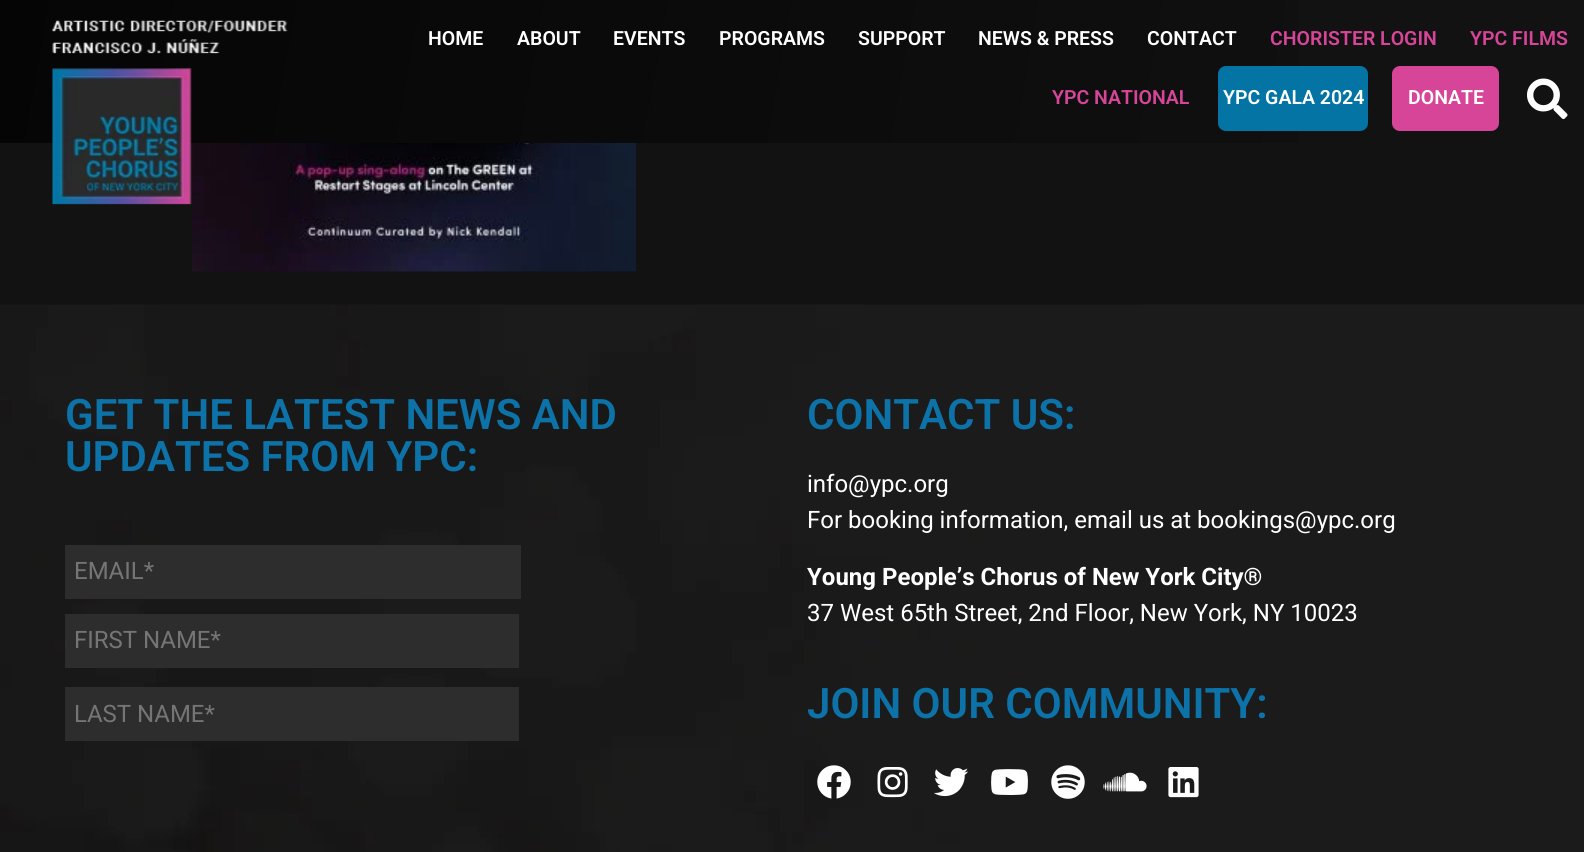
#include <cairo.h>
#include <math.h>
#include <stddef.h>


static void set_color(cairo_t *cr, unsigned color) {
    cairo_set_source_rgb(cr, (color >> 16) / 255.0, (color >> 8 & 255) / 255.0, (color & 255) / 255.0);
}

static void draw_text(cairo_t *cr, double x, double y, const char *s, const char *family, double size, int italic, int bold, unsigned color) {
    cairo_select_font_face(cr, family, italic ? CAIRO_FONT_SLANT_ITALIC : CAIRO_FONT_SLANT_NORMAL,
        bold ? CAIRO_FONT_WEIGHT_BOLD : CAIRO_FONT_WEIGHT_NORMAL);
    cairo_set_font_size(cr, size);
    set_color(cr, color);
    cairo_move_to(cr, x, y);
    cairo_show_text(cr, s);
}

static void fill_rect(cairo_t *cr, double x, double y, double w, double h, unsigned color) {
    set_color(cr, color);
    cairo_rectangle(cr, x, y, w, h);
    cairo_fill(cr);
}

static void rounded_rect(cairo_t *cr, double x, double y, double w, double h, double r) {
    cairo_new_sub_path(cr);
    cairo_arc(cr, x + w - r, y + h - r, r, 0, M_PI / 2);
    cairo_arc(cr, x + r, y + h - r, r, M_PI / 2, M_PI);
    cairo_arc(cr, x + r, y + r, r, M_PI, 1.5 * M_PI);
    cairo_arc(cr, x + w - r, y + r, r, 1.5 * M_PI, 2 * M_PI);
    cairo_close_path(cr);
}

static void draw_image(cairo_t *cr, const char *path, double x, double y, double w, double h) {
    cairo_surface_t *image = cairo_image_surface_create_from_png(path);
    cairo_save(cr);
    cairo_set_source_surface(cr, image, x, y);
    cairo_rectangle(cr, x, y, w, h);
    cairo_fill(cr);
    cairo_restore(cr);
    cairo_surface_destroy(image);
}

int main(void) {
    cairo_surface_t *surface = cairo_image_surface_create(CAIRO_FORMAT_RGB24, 1584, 852);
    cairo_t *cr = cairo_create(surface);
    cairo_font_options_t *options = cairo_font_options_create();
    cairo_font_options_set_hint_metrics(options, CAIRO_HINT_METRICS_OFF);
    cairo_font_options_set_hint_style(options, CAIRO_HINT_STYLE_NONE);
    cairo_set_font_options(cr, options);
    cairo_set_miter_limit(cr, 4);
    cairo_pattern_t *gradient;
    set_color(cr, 0x121212);
    cairo_paint(cr);
    gradient = cairo_pattern_create_linear(12, -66, 1572, 209);
    cairo_pattern_add_color_stop_rgba(gradient, 0, 0.02, 0.02, 0.02, 1);
    cairo_pattern_add_color_stop_rgba(gradient, 1, 0.071, 0.071, 0.071, 1);
    cairo_set_source(cr, gradient);
    cairo_pattern_destroy(gradient);
    cairo_rectangle(cr, 0, 0, 1299, 143);
    cairo_fill(cr);
    draw_image(cr, "assets/img3.png", 192, 143, 444, 129);
    draw_image(cr, "assets/img1.png", 52, 20, 236, 185);
    draw_text(cr, 428, 45, "HOME", "Roboto SemiBold", 19.5, 0, 0, 0xFFFFFF);
    draw_text(cr, 517, 45, "ABOUT", "Roboto SemiBold", 19.5, 0, 0, 0xFFFFFF);
    draw_text(cr, 613, 45, "EVENTS", "Roboto SemiBold", 19.5, 0, 0, 0xFFFFFF);
    draw_text(cr, 719, 45, "PROGRAMS", "Roboto SemiBold", 19.5, 0, 0, 0xFFFFFF);
    draw_text(cr, 858, 45, "SUPPORT", "Roboto SemiBold", 19.5, 0, 0, 0xFFFFFF);
    draw_text(cr, 978, 45, "NEWS & PRESS", "Roboto SemiBold", 19.5, 0, 0, 0xFFFFFF);
    draw_text(cr, 1147, 45, "CONTACT", "Roboto SemiBold", 19.5, 0, 0, 0xFFFFFF);
    draw_text(cr, 1270, 45, "CHORISTER LOGIN", "Roboto SemiBold", 19.5, 0, 0, 0xD74599);
    draw_text(cr, 1470, 45, "YPC FILMS", "Roboto SemiBold", 19.5, 0, 0, 0xD74599);
    draw_text(cr, 1052, 104, "YPC NATIONAL", "Roboto SemiBold", 19.5, 0, 0, 0xD74599);
    set_color(cr, 0x0374A4);
    rounded_rect(cr, 1218, 66, 150, 65, 8);
    cairo_fill(cr);
    draw_text(cr, 1223, 104, "YPC GALA 2024", "Roboto SemiBold", 19.5, 0, 0, 0xFFFFFF);
    set_color(cr, 0xD74599);
    rounded_rect(cr, 1392, 66, 107, 65, 8);
    cairo_fill(cr);
    draw_text(cr, 1408, 104, "DONATE", "Roboto SemiBold", 19.5, 0, 0, 0xFFFFFF);
    draw_image(cr, "assets/img2.png", 1527, 78, 41, 41);
    draw_image(cr, "assets/img4.png", 0, 304, 1584, 548);
    draw_text(cr, 65, 429, "GET THE LATEST NEWS AND", "Roboto SemiBold", 42, 0, 0, 0x0C72A7);
    draw_text(cr, 65, 471, "UPDATES FROM YPC:", "Roboto SemiBold", 42, 0, 0, 0x0C72A7);
    fill_rect(cr, 65, 545, 456, 54, 0x2D2D2D);
    draw_text(cr, 74, 579, "EMAIL*", "Roboto", 24, 0, 0, 0x757575);
    fill_rect(cr, 65, 614, 454, 54, 0x2D2D2D);
    draw_text(cr, 74, 648, "FIRST NAME*", "Roboto", 24, 0, 0, 0x757575);
    fill_rect(cr, 65, 687, 454, 54, 0x2D2D2D);
    draw_text(cr, 74, 722, "LAST NAME*", "Roboto", 24, 0, 0, 0x757575);
    draw_text(cr, 807, 429, "CONTACT US:", "Roboto SemiBold", 42, 0, 0, 0x0C72A7);
    draw_text(cr, 807, 492, "info@ypc.org", "Roboto", 24, 0, 0, 0xFFFFFF);
    draw_text(cr, 807, 528, "For booking information, email us at bookings@ypc.org", "Roboto", 24, 0, 0, 0xFFFFFF);
    draw_text(cr, 807, 585, "Young People’s Chorus of New York City®", "Roboto", 24, 0, 1, 0xFFFFFF);
    draw_text(cr, 807, 621, "37 West 65th Street, 2nd Floor, New York, NY 10023", "Roboto", 24, 0, 0, 0xFFFFFF);
    draw_text(cr, 807, 718, "JOIN OUR COMMUNITY:", "Roboto SemiBold", 42, 0, 0, 0x0C72A7);
    draw_image(cr, "assets/img5.png", 817, 765, 34, 34);
    draw_image(cr, "assets/img6.png", 877, 767, 31, 31);
    draw_image(cr, "assets/img7.png", 934, 768, 35, 29);
    draw_image(cr, "assets/img8.png", 991, 769, 37, 26);
    draw_image(cr, "assets/img9.png", 1051, 765, 34, 34);
    draw_image(cr, "assets/img10.png", 1103, 772, 44, 20);
    draw_image(cr, "assets/img11.png", 1168, 767, 31, 31);
    cairo_surface_write_to_png(surface, "output.png");
    cairo_font_options_destroy(options);
    cairo_destroy(cr);
    cairo_surface_destroy(surface);
    return 0;
}
